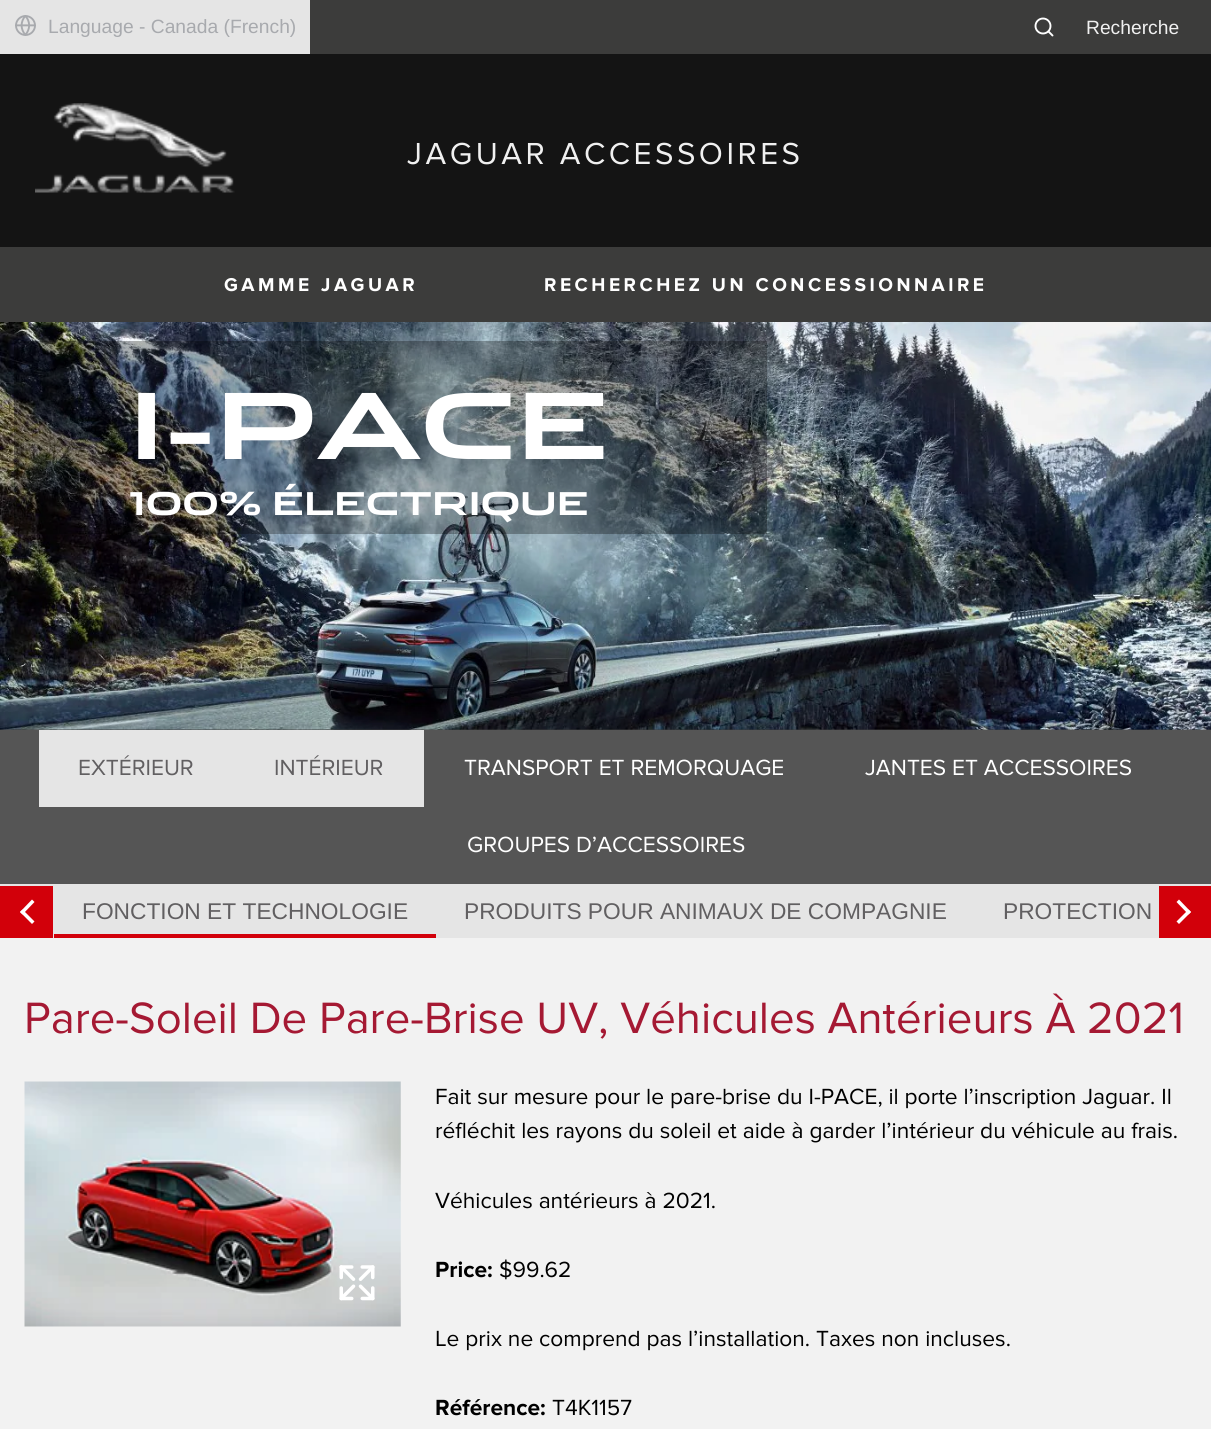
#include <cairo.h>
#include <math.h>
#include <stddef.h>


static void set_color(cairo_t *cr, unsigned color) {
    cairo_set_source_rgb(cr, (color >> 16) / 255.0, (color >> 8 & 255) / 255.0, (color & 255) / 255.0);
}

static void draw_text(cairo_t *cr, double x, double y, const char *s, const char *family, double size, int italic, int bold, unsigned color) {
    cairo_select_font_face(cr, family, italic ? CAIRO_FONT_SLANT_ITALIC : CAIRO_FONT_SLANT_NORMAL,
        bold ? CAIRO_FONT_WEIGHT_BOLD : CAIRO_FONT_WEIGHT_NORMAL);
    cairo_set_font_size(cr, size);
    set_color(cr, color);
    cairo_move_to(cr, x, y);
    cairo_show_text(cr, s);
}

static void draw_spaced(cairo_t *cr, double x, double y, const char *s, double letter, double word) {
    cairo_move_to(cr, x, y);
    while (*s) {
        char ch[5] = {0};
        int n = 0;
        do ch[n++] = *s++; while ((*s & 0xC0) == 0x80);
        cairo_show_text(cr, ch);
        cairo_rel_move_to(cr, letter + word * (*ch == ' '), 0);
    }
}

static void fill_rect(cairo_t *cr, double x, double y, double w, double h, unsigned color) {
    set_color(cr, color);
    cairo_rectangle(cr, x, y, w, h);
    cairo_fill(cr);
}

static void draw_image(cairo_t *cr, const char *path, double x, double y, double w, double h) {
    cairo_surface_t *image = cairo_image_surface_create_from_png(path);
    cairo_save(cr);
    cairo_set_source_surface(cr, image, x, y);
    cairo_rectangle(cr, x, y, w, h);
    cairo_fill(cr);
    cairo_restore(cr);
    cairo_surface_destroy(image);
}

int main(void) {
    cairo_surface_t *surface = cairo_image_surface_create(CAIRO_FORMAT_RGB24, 1211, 1429);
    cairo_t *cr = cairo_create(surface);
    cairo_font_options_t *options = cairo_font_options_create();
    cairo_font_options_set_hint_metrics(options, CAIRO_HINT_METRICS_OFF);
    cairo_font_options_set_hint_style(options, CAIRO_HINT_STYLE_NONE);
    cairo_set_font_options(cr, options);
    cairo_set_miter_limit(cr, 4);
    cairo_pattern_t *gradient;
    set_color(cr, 0x141414);
    cairo_paint(cr);
    fill_rect(cr, 310, 0, 901, 54, 0x3C3C3B);
    fill_rect(cr, 0, 0, 310, 54, 0xE5E5E5);
    draw_image(cr, "assets/img1.png", 15, 15, 21, 21);
    draw_text(cr, 48, 33, "Language - Canada (French)", "Liberation Sans", 19.25, 0, 0, 0xA8AAAE);
    cairo_new_path(cr);
    cairo_arc(cr, 1043, 26, 7.5, 0, 2 * M_PI);
    set_color(cr, 0xFFFFFF);
    cairo_set_line_width(cr, 1.9);
    cairo_stroke(cr);
    cairo_new_path(cr);
    cairo_move_to(cr, 1052.5, 35.5);
    cairo_line_to(cr, 1048.5, 31.5);
    cairo_set_line_cap(cr, CAIRO_LINE_CAP_ROUND);
    cairo_set_line_join(cr, CAIRO_LINE_JOIN_ROUND);
    cairo_stroke(cr);
    draw_text(cr, 1086, 34, "Recherche", "Liberation Sans", 19.25, 0, 0, 0xF0F0F0);
    draw_image(cr, "assets/img2.png", 35, 103, 200, 90);
    cairo_select_font_face(cr, "Proxima Nova", CAIRO_FONT_SLANT_NORMAL, CAIRO_FONT_WEIGHT_NORMAL);
    cairo_set_font_size(cr, 31.5);
    draw_spaced(cr, 407, 164, "JAGUAR ACCESSOIRES", 3.5, 0);
    fill_rect(cr, 0, 247, 1211, 75, 0x3C3C3B);
    cairo_select_font_face(cr, "Proxima Nova", CAIRO_FONT_SLANT_NORMAL, CAIRO_FONT_WEIGHT_BOLD);
    cairo_set_font_size(cr, 19.25);
    set_color(cr, 0xFFFFFF);
    draw_spaced(cr, 224, 291, "GAMME JAGUAR", 3.5, 0);
    draw_spaced(cr, 544, 291, "RECHERCHEZ UN CONCESSIONNAIRE", 3.5, 0);
    fill_rect(cr, 0, 729, 1211, 1, 0x3C3C3B);
    draw_image(cr, "assets/img3.png", 0, 322, 1211, 408);
    cairo_set_source_rgba(cr, 0, 0, 0, 0.3);
    cairo_rectangle(cr, 14, 341, 753, 193);
    cairo_fill(cr);
    draw_text(cr, 129, 459, "I-PACE", "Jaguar", 91, 0, 1, 0xFFFFFF);
    draw_text(cr, 129, 515, "100% ÉLECTRIQUE", "Jaguar", 31.5, 0, 1, 0xFFFFFF);
    fill_rect(cr, 0, 730, 1211, 154, 0x555555);
    fill_rect(cr, 39, 730, 385, 77, 0xE5E5E5);
    draw_text(cr, 78, 775, "EXTÉRIEUR", "Proxima Nova", 22.75, 0, 0, 0x615F61);
    draw_text(cr, 274, 775, "INTÉRIEUR", "Proxima Nova", 22.75, 0, 0, 0x615F61);
    draw_text(cr, 464, 775, "TRANSPORT ET REMORQUAGE", "Proxima Nova", 22.75, 0, 0, 0xFFFFFF);
    draw_text(cr, 865, 775, "JANTES ET ACCESSOIRES", "Proxima Nova", 22.75, 0, 0, 0xFFFFFF);
    draw_text(cr, 467, 852, "GROUPES D’ACCESSOIRES", "Proxima Nova", 22.75, 0, 0, 0xFFFFFF);
    fill_rect(cr, 0, 884, 1211, 54, 0xE5E5E5);
    fill_rect(cr, 0, 886, 53, 52, 0xD2000A);
    set_color(cr, 0xFFFFFF);
    cairo_new_path(cr);
    cairo_move_to(cr, 22.5, 909.5);
    cairo_line_to(cr, 34.5, 921.5);
    cairo_line_to(cr, 32, 924);
    cairo_line_to(cr, 20, 912);
    cairo_close_path(cr);
    cairo_fill(cr);
    cairo_new_path(cr);
    cairo_move_to(cr, 32, 899.5);
    cairo_line_to(cr, 34.5, 902);
    cairo_line_to(cr, 22.5, 914.5);
    cairo_line_to(cr, 20, 912);
    cairo_close_path(cr);
    cairo_fill(cr);
    fill_rect(cr, 1159, 886, 52, 52, 0xD2000A);
    set_color(cr, 0xFFFFFF);
    cairo_new_path(cr);
    cairo_move_to(cr, 1179, 899.5);
    cairo_line_to(cr, 1191, 912);
    cairo_line_to(cr, 1188.5, 914.5);
    cairo_line_to(cr, 1176.5, 902);
    cairo_close_path(cr);
    cairo_fill(cr);
    cairo_new_path(cr);
    cairo_move_to(cr, 1188.5, 909.5);
    cairo_line_to(cr, 1191, 912);
    cairo_line_to(cr, 1179, 924);
    cairo_line_to(cr, 1176.5, 921.5);
    cairo_close_path(cr);
    cairo_fill(cr);
    gradient = cairo_pattern_create_linear(245, 884, 245, 938);
    cairo_pattern_add_color_stop_rgba(gradient, 0, 0.898, 0.898, 0.898, 1);
    cairo_pattern_add_color_stop_rgba(gradient, 0.92, 0.898, 0.898, 0.898, 1);
    cairo_pattern_add_color_stop_rgba(gradient, 0.92, 0.824, 0, 0.039, 1);
    cairo_pattern_add_color_stop_rgba(gradient, 1, 0.824, 0, 0.039, 1);
    cairo_set_source(cr, gradient);
    cairo_pattern_destroy(gradient);
    cairo_rectangle(cr, 54, 934, 382, 4);
    cairo_fill(cr);
    draw_text(cr, 82, 919, "FONCTION ET TECHNOLOGIE", "Liberation Sans", 22.75, 0, 0, 0x615F61);
    draw_text(cr, 464, 919, "PRODUITS POUR ANIMAUX DE COMPAGNIE", "Liberation Sans", 22.75, 0, 0, 0x615F61);
    draw_text(cr, 1003, 919, "PROTECTION", "Liberation Sans", 22.75, 0, 0, 0x615F61);
    fill_rect(cr, 0, 938, 1211, 491, 0xF2F2F2);
    draw_text(cr, 24, 1033, "Pare-Soleil De Pare-Brise UV, Véhicules Antérieurs À 2021", "Proxima Nova", 45.5, 0, 0, 0xA51933);
    draw_image(cr, "assets/img4.png", 24, 1081, 377, 246);
    draw_image(cr, "assets/img5.png", 339, 1265, 36, 36);
    draw_text(cr, 435, 1104, "Fait sur mesure pour le pare-brise du I-PACE, il porte l’inscription Jaguar. Il", "Proxima Nova", 22.75, 0, 0, 0x000000);
    draw_text(cr, 435, 1138, "réfléchit les rayons du soleil et aide à garder l’intérieur du véhicule au frais.", "Proxima Nova", 22.75, 0, 0, 0x000000);
    draw_text(cr, 435, 1208, "Véhicules antérieurs à 2021.", "Proxima Nova", 22.75, 0, 0, 0x000000);
    draw_text(cr, 435, 1277, "Price:", "Proxima Nova", 22.75, 0, 1, 0x000000);
    draw_text(cr, 499, 1277, "$99.62", "Proxima Nova", 22.75, 0, 0, 0x000000);
    draw_text(cr, 435, 1346, "Le prix ne comprend pas l’installation. Taxes non incluses.", "Proxima Nova", 22.75, 0, 0, 0x000000);
    draw_text(cr, 435, 1415, "Référence:", "Proxima Nova", 22.75, 0, 1, 0x000000);
    draw_text(cr, 552, 1415, "T4K1157", "Proxima Nova", 22.75, 0, 0, 0x000000);
    cairo_surface_write_to_png(surface, "output.png");
    cairo_font_options_destroy(options);
    cairo_destroy(cr);
    cairo_surface_destroy(surface);
    return 0;
}
